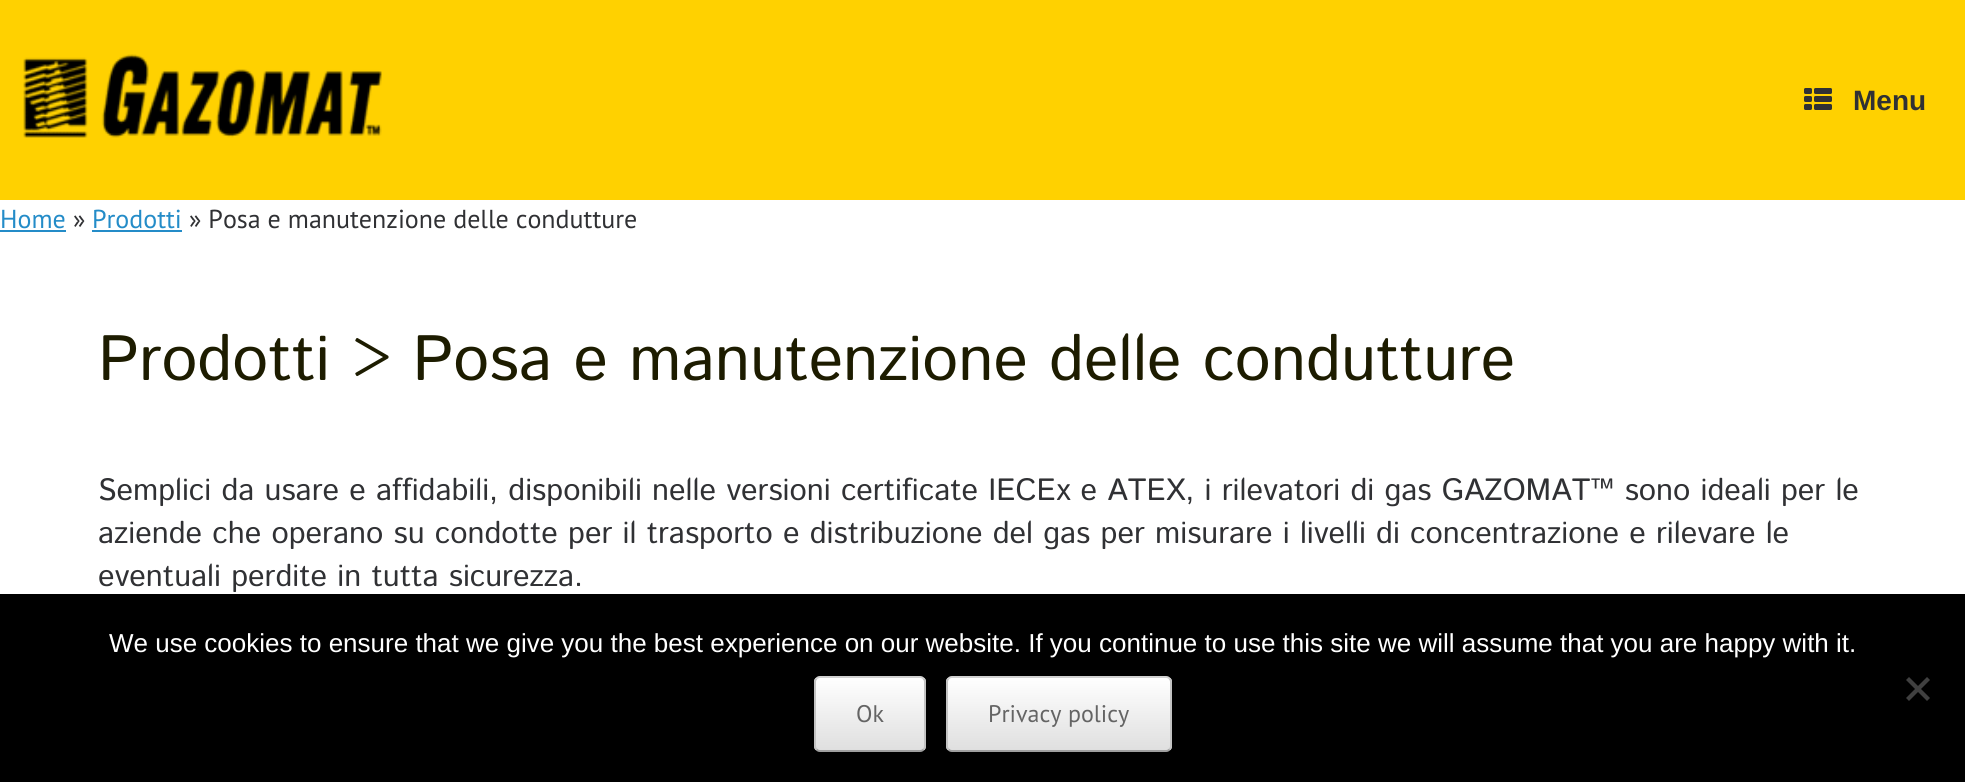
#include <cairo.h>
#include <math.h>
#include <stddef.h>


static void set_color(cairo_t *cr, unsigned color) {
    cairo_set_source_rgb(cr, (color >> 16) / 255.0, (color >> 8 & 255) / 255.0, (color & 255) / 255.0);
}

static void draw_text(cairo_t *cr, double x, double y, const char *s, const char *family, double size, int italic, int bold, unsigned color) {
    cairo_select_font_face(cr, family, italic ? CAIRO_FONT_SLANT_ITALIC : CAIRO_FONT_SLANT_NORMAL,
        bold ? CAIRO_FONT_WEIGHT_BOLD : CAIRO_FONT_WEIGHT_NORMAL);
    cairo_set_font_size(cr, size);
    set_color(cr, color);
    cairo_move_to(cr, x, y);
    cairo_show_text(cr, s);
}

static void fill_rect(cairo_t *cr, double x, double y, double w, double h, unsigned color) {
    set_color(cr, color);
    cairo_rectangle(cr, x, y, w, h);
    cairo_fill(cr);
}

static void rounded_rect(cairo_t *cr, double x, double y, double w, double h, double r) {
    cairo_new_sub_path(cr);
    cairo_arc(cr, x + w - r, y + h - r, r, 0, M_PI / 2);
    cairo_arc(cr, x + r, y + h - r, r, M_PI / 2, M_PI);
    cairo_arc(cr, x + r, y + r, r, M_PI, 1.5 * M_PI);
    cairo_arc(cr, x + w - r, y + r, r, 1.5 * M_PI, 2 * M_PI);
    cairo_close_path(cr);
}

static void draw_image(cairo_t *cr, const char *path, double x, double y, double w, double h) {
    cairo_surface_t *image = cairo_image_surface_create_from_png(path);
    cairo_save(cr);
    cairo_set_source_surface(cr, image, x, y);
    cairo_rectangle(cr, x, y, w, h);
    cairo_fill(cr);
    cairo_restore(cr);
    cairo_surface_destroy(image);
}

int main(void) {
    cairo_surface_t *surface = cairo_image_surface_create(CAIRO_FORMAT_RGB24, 1965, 782);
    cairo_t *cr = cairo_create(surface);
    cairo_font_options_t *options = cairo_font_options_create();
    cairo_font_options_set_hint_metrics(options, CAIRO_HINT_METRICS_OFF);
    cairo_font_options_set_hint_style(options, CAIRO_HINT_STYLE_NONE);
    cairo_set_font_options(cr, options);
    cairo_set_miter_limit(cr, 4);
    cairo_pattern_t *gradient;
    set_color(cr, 0xFFFFFF);
    cairo_paint(cr);
    fill_rect(cr, 0, 0, 1965, 200, 0xFFD100);
    draw_image(cr, "assets/img1.png", 23, 54, 359, 84);
    draw_image(cr, "assets/img2.png", 1804, 88, 28, 22);
    draw_text(cr, 1853, 110, "Menu", "Liberation Sans", 28, 0, 1, 0x303134);
    draw_text(cr, 0, 228, "Home", "PT Sans", 26, 0, 0, 0x248CC8);
    fill_rect(cr, 0, 230, 66, 2, 0x248CC8);
    draw_text(cr, 73, 228, "»", "PT Sans", 26, 0, 0, 0x303134);
    draw_text(cr, 92, 228, "Prodotti", "PT Sans", 26, 0, 0, 0x248CC8);
    fill_rect(cr, 92, 230, 90, 2, 0x248CC8);
    draw_text(cr, 189, 228, "» Posa e manutenzione delle condutture", "PT Sans", 26, 0, 0, 0x303134);
    draw_text(cr, 98, 380, "Prodotti > Posa e manutenzione delle condutture", "Istok Web", 64, 0, 0, 0x1D1C00);
    draw_text(cr, 98, 500, "Semplici da usare e affidabili, disponibili nelle versioni certificate IECEx e ATEX, i rilevatori di gas GAZOMAT™ sono ideali per le", "Istok Web", 30.8, 0, 0, 0x303134);
    draw_text(cr, 98, 543, "aziende che operano su condotte per il trasporto e distribuzione del gas per misurare i livelli di concentrazione e rilevare le", "Istok Web", 30.8, 0, 0, 0x303134);
    draw_text(cr, 98, 586, "eventuali perdite in tutta sicurezza.", "Istok Web", 30.8, 0, 0, 0x303134);
    fill_rect(cr, 0, 594, 1965, 188, 0x000000);
    draw_text(cr, 109, 652, "We use cookies to ensure that we give you the best experience on our website. If you continue to use this site we will assume that you are happy with it.", "Liberation Sans", 26, 0, 0, 0xFFFFFF);
    set_color(cr, 0x404040);
    cairo_new_path(cr);
    cairo_move_to(cr, 1927, 677);
    cairo_line_to(cr, 1930, 680);
    cairo_line_to(cr, 1909, 701);
    cairo_line_to(cr, 1906, 698);
    cairo_close_path(cr);
    cairo_fill(cr);
    cairo_new_path(cr);
    cairo_move_to(cr, 1906, 680);
    cairo_line_to(cr, 1909, 677);
    cairo_line_to(cr, 1930, 698);
    cairo_line_to(cr, 1927, 701);
    cairo_close_path(cr);
    cairo_fill(cr);
    cairo_save(cr);
    rounded_rect(cr, 814, 676, 112, 76, 6);
    cairo_clip(cr);
    gradient = cairo_pattern_create_linear(816, 750, 816, 678);
    cairo_pattern_add_color_stop_rgba(gradient, 0, 0.875, 0.875, 0.875, 1);
    cairo_pattern_add_color_stop_rgba(gradient, 1, 1, 1, 1, 1);
    cairo_set_source(cr, gradient);
    cairo_pattern_destroy(gradient);
    cairo_rectangle(cr, 814, 678, 112, 72);
    cairo_fill(cr);
    cairo_restore(cr);
    cairo_new_path(cr);
    cairo_move_to(cr, 816.5, 678.5);
    cairo_curve_to(cr, 817.5, 677.5, 818.5, 677, 820, 677);
    cairo_line_to(cr, 920, 677);
    cairo_curve_to(cr, 921.5, 677, 922.5, 677.5, 923.5, 678.5);
    set_color(cr, 0xD2D2D2);
    cairo_stroke(cr);
    cairo_new_path(cr);
    cairo_move_to(cr, 923.5, 678.5);
    cairo_curve_to(cr, 924.5, 679.5, 925, 680.5, 925, 682);
    cairo_line_to(cr, 925, 746);
    cairo_curve_to(cr, 925, 747.5, 924.5, 748.5, 923.5, 749.5);
    set_color(cr, 0xC3C3C3);
    cairo_stroke(cr);
    cairo_new_path(cr);
    cairo_move_to(cr, 923.5, 749.5);
    cairo_curve_to(cr, 922.5, 750.5, 921.5, 751, 920, 751);
    cairo_line_to(cr, 820, 751);
    cairo_curve_to(cr, 818.5, 751, 817.5, 750.5, 816.5, 749.5);
    set_color(cr, 0x9F9F9F);
    cairo_stroke(cr);
    cairo_new_path(cr);
    cairo_move_to(cr, 816.5, 749.5);
    cairo_curve_to(cr, 815.5, 748.5, 815, 747.5, 815, 746);
    cairo_line_to(cr, 815, 682);
    cairo_curve_to(cr, 815, 680.5, 815.5, 679.5, 816.5, 678.5);
    set_color(cr, 0xC3C3C3);
    cairo_stroke(cr);
    draw_text(cr, 856, 722, "Ok", "PT Sans", 24, 0, 0, 0x646464);
    cairo_save(cr);
    rounded_rect(cr, 946, 676, 226, 76, 6);
    cairo_clip(cr);
    gradient = cairo_pattern_create_linear(948, 750, 948, 678);
    cairo_pattern_add_color_stop_rgba(gradient, 0, 0.875, 0.875, 0.875, 1);
    cairo_pattern_add_color_stop_rgba(gradient, 1, 1, 1, 1, 1);
    cairo_set_source(cr, gradient);
    cairo_pattern_destroy(gradient);
    cairo_rectangle(cr, 946, 678, 226, 72);
    cairo_fill(cr);
    cairo_restore(cr);
    cairo_new_path(cr);
    cairo_move_to(cr, 948.5, 678.5);
    cairo_curve_to(cr, 949.5, 677.5, 950.5, 677, 952, 677);
    cairo_line_to(cr, 1166, 677);
    cairo_curve_to(cr, 1167.5, 677, 1168.5, 677.5, 1169.5, 678.5);
    set_color(cr, 0xD2D2D2);
    cairo_stroke(cr);
    cairo_new_path(cr);
    cairo_move_to(cr, 1169.5, 678.5);
    cairo_curve_to(cr, 1170.5, 679.5, 1171, 680.5, 1171, 682);
    cairo_line_to(cr, 1171, 746);
    cairo_curve_to(cr, 1171, 747.5, 1170.5, 748.5, 1169.5, 749.5);
    set_color(cr, 0xC3C3C3);
    cairo_stroke(cr);
    cairo_new_path(cr);
    cairo_move_to(cr, 1169.5, 749.5);
    cairo_curve_to(cr, 1168.5, 750.5, 1167.5, 751, 1166, 751);
    cairo_line_to(cr, 952, 751);
    cairo_curve_to(cr, 950.5, 751, 949.5, 750.5, 948.5, 749.5);
    set_color(cr, 0x9F9F9F);
    cairo_stroke(cr);
    cairo_new_path(cr);
    cairo_move_to(cr, 948.5, 749.5);
    cairo_curve_to(cr, 947.5, 748.5, 947, 747.5, 947, 746);
    cairo_line_to(cr, 947, 682);
    cairo_curve_to(cr, 947, 680.5, 947.5, 679.5, 948.5, 678.5);
    set_color(cr, 0xC3C3C3);
    cairo_stroke(cr);
    draw_text(cr, 988, 722, "Privacy policy", "PT Sans", 24, 0, 0, 0x646464);
    cairo_surface_write_to_png(surface, "output.png");
    cairo_font_options_destroy(options);
    cairo_destroy(cr);
    cairo_surface_destroy(surface);
    return 0;
}
